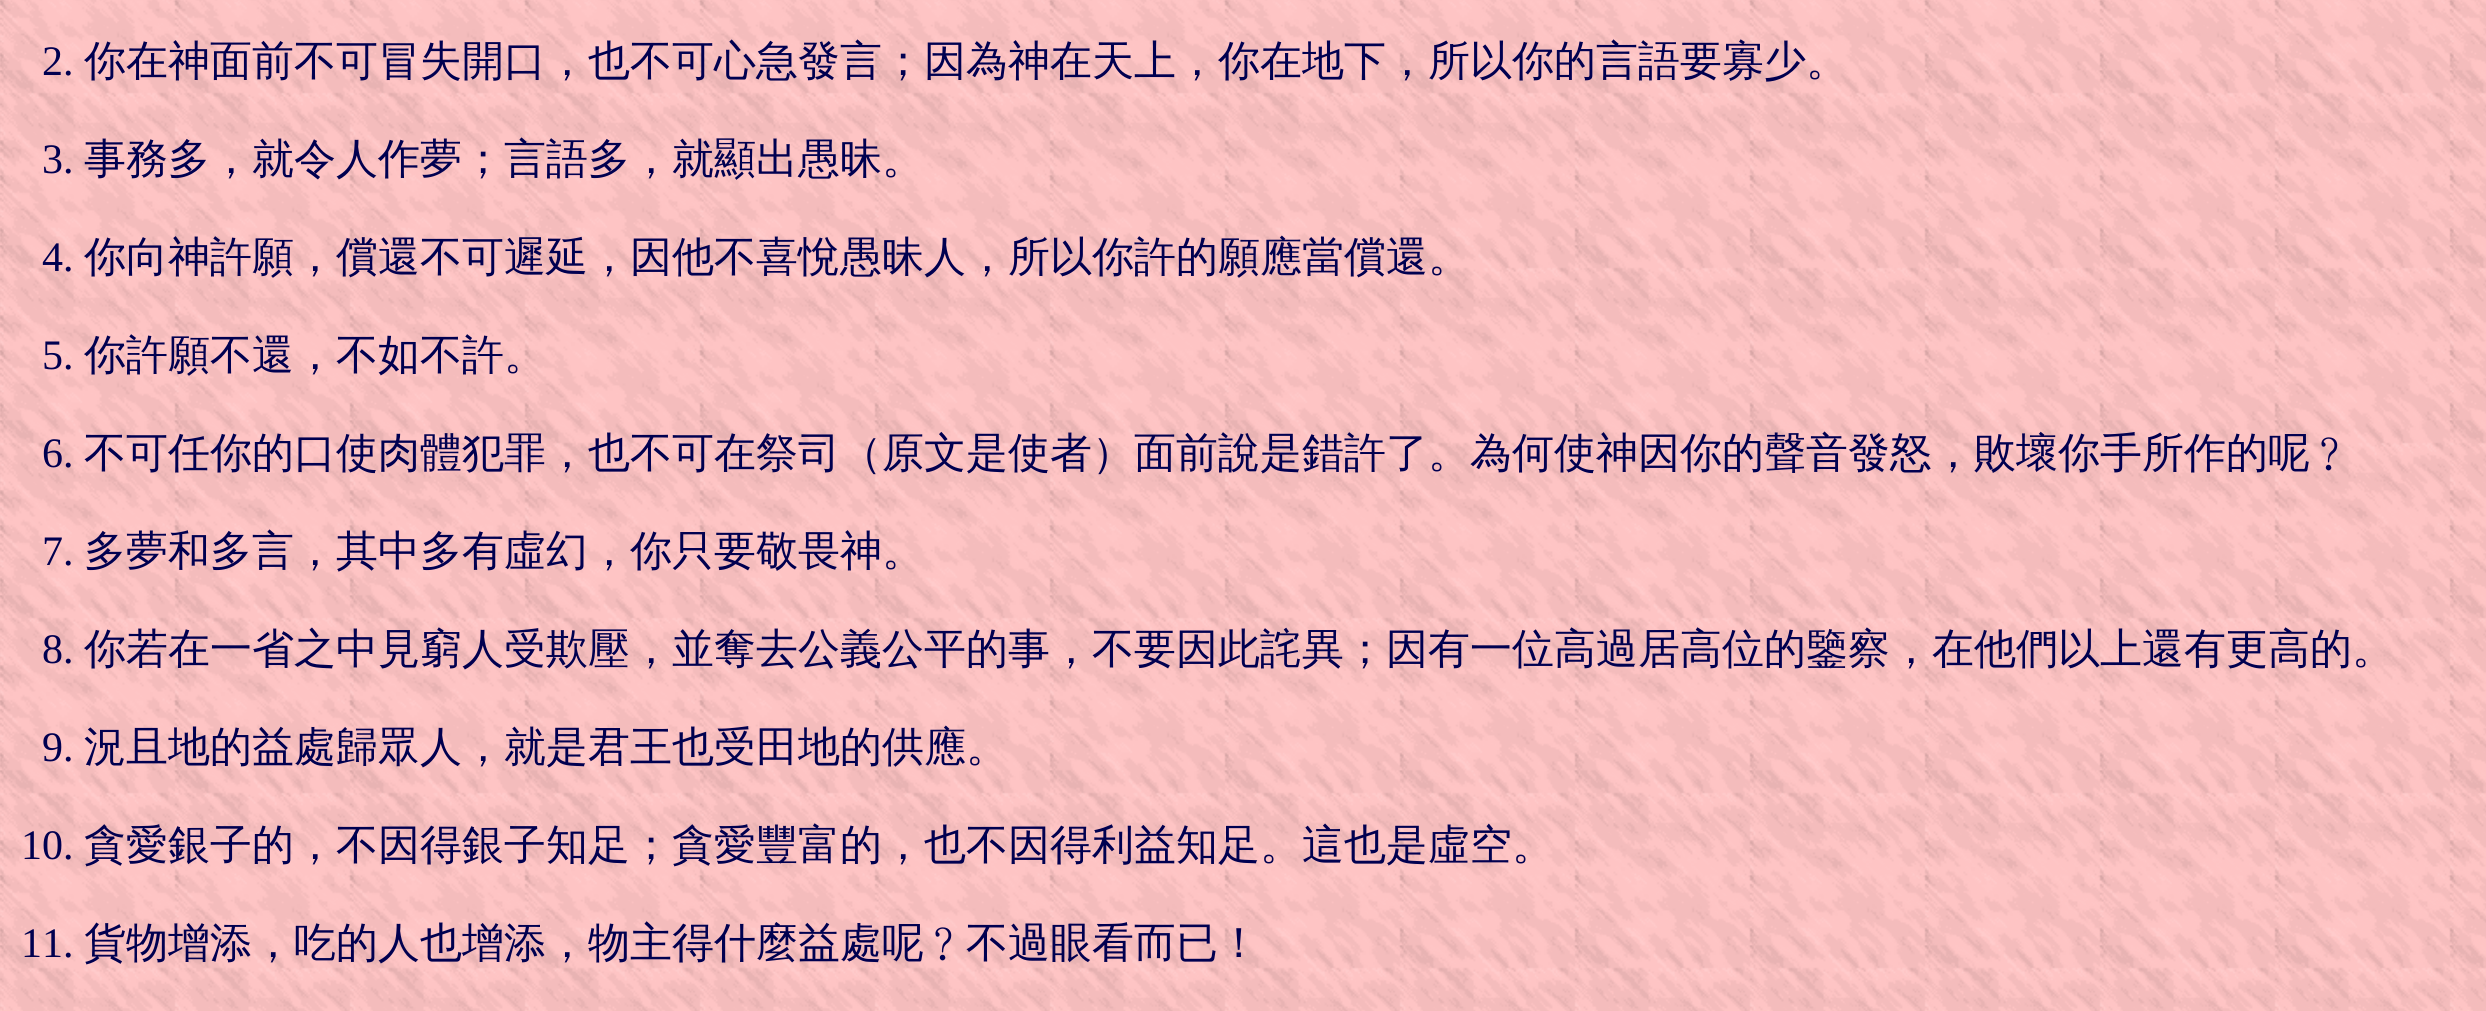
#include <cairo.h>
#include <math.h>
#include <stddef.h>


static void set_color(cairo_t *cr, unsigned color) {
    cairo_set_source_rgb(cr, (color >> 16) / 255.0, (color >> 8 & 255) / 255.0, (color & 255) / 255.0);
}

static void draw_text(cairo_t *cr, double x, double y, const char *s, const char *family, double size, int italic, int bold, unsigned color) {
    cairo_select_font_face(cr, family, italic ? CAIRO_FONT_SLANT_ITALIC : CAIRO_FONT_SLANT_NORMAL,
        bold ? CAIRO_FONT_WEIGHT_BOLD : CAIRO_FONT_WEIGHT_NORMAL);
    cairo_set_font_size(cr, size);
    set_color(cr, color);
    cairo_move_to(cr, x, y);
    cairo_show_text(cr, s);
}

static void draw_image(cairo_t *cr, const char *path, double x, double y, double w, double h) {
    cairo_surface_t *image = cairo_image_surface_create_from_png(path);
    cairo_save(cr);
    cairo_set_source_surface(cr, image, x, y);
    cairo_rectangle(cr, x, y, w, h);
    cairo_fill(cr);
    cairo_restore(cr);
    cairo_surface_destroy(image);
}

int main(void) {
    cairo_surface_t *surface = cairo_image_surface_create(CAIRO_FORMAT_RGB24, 2486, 1011);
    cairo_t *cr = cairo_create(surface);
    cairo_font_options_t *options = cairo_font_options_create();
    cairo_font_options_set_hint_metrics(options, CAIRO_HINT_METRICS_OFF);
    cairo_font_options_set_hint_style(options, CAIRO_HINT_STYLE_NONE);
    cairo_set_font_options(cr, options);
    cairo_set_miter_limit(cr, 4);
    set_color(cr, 0xFFFFFF);
    cairo_paint(cr);
    draw_image(cr, "assets/img1.png", 0, 0, 2486, 1011);
    draw_text(cr, 42, 75, "2.", "Liberation Serif", 42, 0, 0, 0x000050);
    draw_text(cr, 84, 75, "你在神面前不可冒失開口，也不可心急發言；因為神在天上，你在地下，所以你的言語要寡少。", "WenQuanYi Zen Hei Medium", 42, 0, 0, 0x000050);
    draw_text(cr, 42, 173, "3.", "Liberation Serif", 42, 0, 0, 0x000050);
    draw_text(cr, 84, 173, "事務多，就令人作夢；言語多，就顯出愚昧。", "WenQuanYi Zen Hei Medium", 42, 0, 0, 0x000050);
    draw_text(cr, 42, 271, "4.", "Liberation Serif", 42, 0, 0, 0x000050);
    draw_text(cr, 84, 271, "你向神許願，償還不可遲延，因他不喜悅愚昧人，所以你許的願應當償還。", "WenQuanYi Zen Hei Medium", 42, 0, 0, 0x000050);
    draw_text(cr, 42, 369, "5.", "Liberation Serif", 42, 0, 0, 0x000050);
    draw_text(cr, 84, 369, "你許願不還，不如不許。", "WenQuanYi Zen Hei Medium", 42, 0, 0, 0x000050);
    draw_text(cr, 42, 467, "6.", "Liberation Serif", 42, 0, 0, 0x000050);
    draw_text(cr, 84, 467, "不可任你的口使肉體犯罪，也不可在祭司（原文是使者）面前說是錯許了。為何使神因你的聲音發怒，敗壞你手所作的呢﹖", "WenQuanYi Zen Hei Medium", 42, 0, 0, 0x000050);
    draw_text(cr, 42, 565, "7.", "Liberation Serif", 42, 0, 0, 0x000050);
    draw_text(cr, 84, 565, "多夢和多言，其中多有虛幻，你只要敬畏神。", "WenQuanYi Zen Hei Medium", 42, 0, 0, 0x000050);
    draw_text(cr, 42, 663, "8.", "Liberation Serif", 42, 0, 0, 0x000050);
    draw_text(cr, 84, 663, "你若在一省之中見窮人受欺壓，並奪去公義公平的事，不要因此詫異；因有一位高過居高位的鑒察，在他們以上還有更高的。", "WenQuanYi Zen Hei Medium", 42, 0, 0, 0x000050);
    draw_text(cr, 42, 761, "9.", "Liberation Serif", 42, 0, 0, 0x000050);
    draw_text(cr, 84, 761, "況且地的益處歸眾人，就是君王也受田地的供應。", "WenQuanYi Zen Hei Medium", 42, 0, 0, 0x000050);
    draw_text(cr, 21, 859, "10.", "Liberation Serif", 42, 0, 0, 0x000050);
    draw_text(cr, 84, 859, "貪愛銀子的，不因得銀子知足；貪愛豐富的，也不因得利益知足。這也是虛空。", "WenQuanYi Zen Hei Medium", 42, 0, 0, 0x000050);
    draw_text(cr, 21, 957, "11.", "Liberation Serif", 42, 0, 0, 0x000050);
    draw_text(cr, 84, 957, "貨物增添，吃的人也增添，物主得什麼益處呢﹖不過眼看而已！", "WenQuanYi Zen Hei Medium", 42, 0, 0, 0x000050);
    cairo_surface_write_to_png(surface, "output.png");
    cairo_font_options_destroy(options);
    cairo_destroy(cr);
    cairo_surface_destroy(surface);
    return 0;
}
